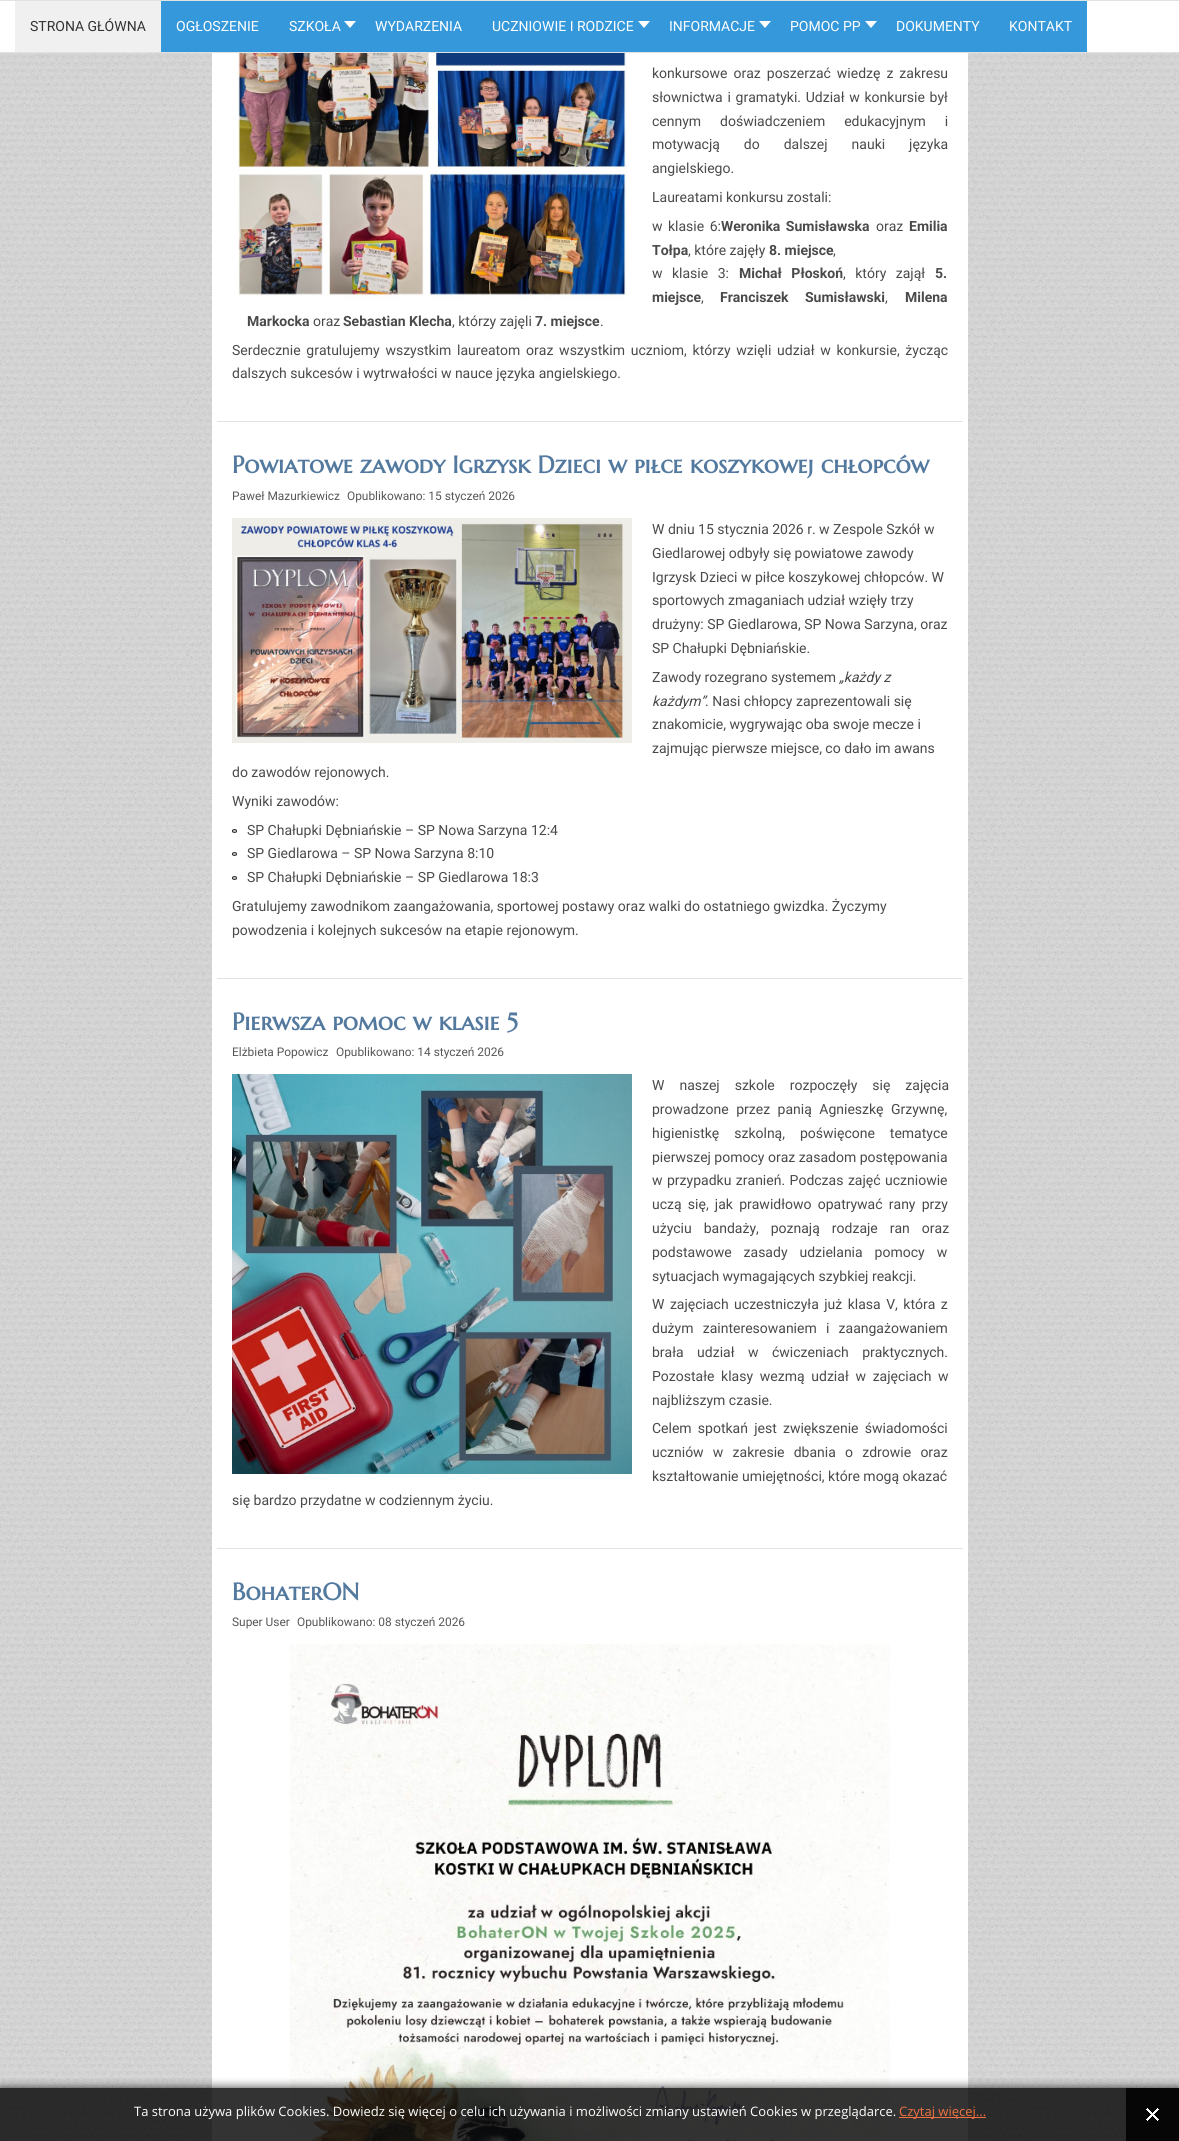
#include <cairo.h>
#include <math.h>
#include <stddef.h>


static void set_color(cairo_t *cr, unsigned color) {
    cairo_set_source_rgb(cr, (color >> 16) / 255.0, (color >> 8 & 255) / 255.0, (color & 255) / 255.0);
}

static void draw_text(cairo_t *cr, double x, double y, const char *s, const char *family, double size, int italic, int bold, unsigned color) {
    cairo_select_font_face(cr, family, italic ? CAIRO_FONT_SLANT_ITALIC : CAIRO_FONT_SLANT_NORMAL,
        bold ? CAIRO_FONT_WEIGHT_BOLD : CAIRO_FONT_WEIGHT_NORMAL);
    cairo_set_font_size(cr, size);
    set_color(cr, color);
    cairo_move_to(cr, x, y);
    cairo_show_text(cr, s);
}

static void draw_spaced(cairo_t *cr, double x, double y, const char *s, double letter, double word) {
    cairo_move_to(cr, x, y);
    while (*s) {
        char ch[5] = {0};
        int n = 0;
        do ch[n++] = *s++; while ((*s & 0xC0) == 0x80);
        cairo_show_text(cr, ch);
        cairo_rel_move_to(cr, letter + word * (*ch == ' '), 0);
    }
}

static void fill_rect(cairo_t *cr, double x, double y, double w, double h, unsigned color) {
    set_color(cr, color);
    cairo_rectangle(cr, x, y, w, h);
    cairo_fill(cr);
}

static void rounded_rect(cairo_t *cr, double x, double y, double w, double h, double r) {
    cairo_new_sub_path(cr);
    cairo_arc(cr, x + w - r, y + h - r, r, 0, M_PI / 2);
    cairo_arc(cr, x + r, y + h - r, r, M_PI / 2, M_PI);
    cairo_arc(cr, x + r, y + r, r, M_PI, 1.5 * M_PI);
    cairo_arc(cr, x + w - r, y + r, r, 1.5 * M_PI, 2 * M_PI);
    cairo_close_path(cr);
}

static void draw_shadow(cairo_t *cr, double x, double y, double w, double h, double r, double blur, double alpha) {
    cairo_push_group_with_content(cr, CAIRO_CONTENT_ALPHA);
    cairo_set_operator(cr, CAIRO_OPERATOR_SOURCE);
    for (int i = 15; i >= -15 && fmin(w, h) + blur * i / 3 > 0; i -= 2) {
        double e = blur * i / 6;
        cairo_set_source_rgba(cr, 0, 0, 0, alpha * erfc((i - 1) / 8.5) / 2);
        rounded_rect(cr, x - e, y - e, w + 2 * e, h + 2 * e, fmax(0, fmin(r + e + blur * .6, fmin(w, h) / 2 + e)));
        cairo_fill(cr);
    }
    cairo_pattern_t *soft = cairo_pop_group(cr);
    cairo_mask(cr, soft);
    cairo_pattern_destroy(soft);
}

static void draw_image(cairo_t *cr, const char *path, double x, double y, double w, double h) {
    cairo_surface_t *image = cairo_image_surface_create_from_png(path);
    cairo_save(cr);
    cairo_set_source_surface(cr, image, x, y);
    cairo_rectangle(cr, x, y, w, h);
    cairo_fill(cr);
    cairo_restore(cr);
    cairo_surface_destroy(image);
}

int main(void) {
    cairo_surface_t *surface = cairo_image_surface_create(CAIRO_FORMAT_RGB24, 1179, 2141);
    cairo_t *cr = cairo_create(surface);
    cairo_font_options_t *options = cairo_font_options_create();
    cairo_font_options_set_hint_metrics(options, CAIRO_HINT_METRICS_OFF);
    cairo_font_options_set_hint_style(options, CAIRO_HINT_STYLE_NONE);
    cairo_set_font_options(cr, options);
    cairo_set_miter_limit(cr, 4);
    set_color(cr, 0xFFFFFF);
    cairo_paint(cr);
    draw_image(cr, "assets/img1.png", 0, 53, 1179, 2088);
    fill_rect(cr, 0, 52, 1179, 1, 0xE2E2E2);
    fill_rect(cr, 0, 0, 1179, 1, 0xE2E2E2);
    fill_rect(cr, 161, 1, 926, 51, 0x3598DB);
    fill_rect(cr, 15, 1, 146, 51, 0xF0F0F0);
    draw_text(cr, 30, 31, "STRONA GŁÓWNA", "Roboto", 14, 0, 0, 0x333333);
    draw_text(cr, 176, 31, "OGŁOSZENIE", "Roboto", 14, 0, 0, 0xFFFFFF);
    draw_text(cr, 289, 31, "SZKOŁA", "Roboto", 14, 0, 0, 0xFFFFFF);
    cairo_new_path(cr);
    cairo_move_to(cr, 344, 21);
    cairo_line_to(cr, 356, 21);
    cairo_line_to(cr, 350, 28);
    cairo_close_path(cr);
    cairo_fill(cr);
    draw_text(cr, 375, 31, "WYDARZENIA", "Roboto", 14, 0, 0, 0xFFFFFF);
    draw_text(cr, 492, 31, "UCZNIOWIE I RODZICE", "Roboto", 14, 0, 0, 0xFFFFFF);
    cairo_new_path(cr);
    cairo_move_to(cr, 638, 21);
    cairo_line_to(cr, 650, 21);
    cairo_line_to(cr, 644, 28);
    cairo_close_path(cr);
    cairo_fill(cr);
    draw_text(cr, 669, 31, "INFORMACJE", "Roboto", 14, 0, 0, 0xFFFFFF);
    cairo_new_path(cr);
    cairo_move_to(cr, 759, 21);
    cairo_line_to(cr, 771, 21);
    cairo_line_to(cr, 765, 28);
    cairo_close_path(cr);
    cairo_fill(cr);
    draw_text(cr, 790, 31, "POMOC PP", "Roboto", 14, 0, 0, 0xFFFFFF);
    cairo_new_path(cr);
    cairo_move_to(cr, 865, 21);
    cairo_line_to(cr, 877, 21);
    cairo_line_to(cr, 871, 28);
    cairo_close_path(cr);
    cairo_fill(cr);
    draw_text(cr, 896, 31, "DOKUMENTY", "Roboto", 14, 0, 0, 0xFFFFFF);
    draw_text(cr, 1009, 31, "KONTAKT", "Roboto", 14, 0, 0, 0xFFFFFF);
    fill_rect(cr, 212, 53, 756, 2088, 0xFFFFFF);
    fill_rect(cr, 217, 421, 746, 1, 0xE2E2E2);
    draw_image(cr, "assets/img2.png", 232, 53, 395, 247);
    set_color(cr, 0x4A4A4A);
    draw_spaced(cr, 652, 78, "konkursowe oraz poszerzać wiedzę z zakresu", 0, 2.5);
    draw_spaced(cr, 652, 102, "słownictwa i gramatyki. Udział w konkursie był", 0, 1.25);
    draw_spaced(cr, 652, 126, "cennym doświadczeniem edukacyjnym i", 0, 15.5);
    draw_spaced(cr, 652, 149, "motywacją do dalszej nauki języka", 0, 20.5);
    draw_text(cr, 652, 173, "angielskiego.", "Roboto", 14, 0, 0, 0x4A4A4A);
    draw_text(cr, 652, 202, "Laureatami konkursu zostali:", "Roboto", 14, 0, 0, 0x4A4A4A);
    draw_spaced(cr, 652, 231, "w klasie 6:", 0, 2);
    cairo_select_font_face(cr, "Roboto", CAIRO_FONT_SLANT_NORMAL, CAIRO_FONT_WEIGHT_BOLD);
    draw_spaced(cr, 721, 231, "Weronika Sumisławska", 0, 2);
    draw_text(cr, 876, 231, "oraz", "Roboto", 14, 0, 0, 0x4A4A4A);
    draw_text(cr, 909, 231, "Emilia", "Roboto", 14, 0, 1, 0x4A4A4A);
    draw_text(cr, 652, 255, "Tołpa", "Roboto", 14, 0, 1, 0x4A4A4A);
    draw_text(cr, 688, 255, ", które zajęły", "Roboto", 14, 0, 0, 0x4A4A4A);
    draw_text(cr, 769, 255, "8. miejsce", "Roboto", 14, 0, 1, 0x4A4A4A);
    draw_text(cr, 833, 255, ",", "Roboto", 14, 0, 0, 0x4A4A4A);
    draw_spaced(cr, 652, 278, "w klasie 3:", 0, 6);
    cairo_select_font_face(cr, "Roboto", CAIRO_FONT_SLANT_NORMAL, CAIRO_FONT_WEIGHT_BOLD);
    draw_spaced(cr, 739, 278, "Michał Płoskoń", 0, 6);
    cairo_select_font_face(cr, "Roboto", CAIRO_FONT_SLANT_NORMAL, CAIRO_FONT_WEIGHT_NORMAL);
    draw_spaced(cr, 843, 278, ", który zajął", 0, 6);
    draw_text(cr, 935, 278, "5.", "Roboto", 14, 0, 1, 0x4A4A4A);
    draw_text(cr, 652, 302, "miejsce", "Roboto", 14, 0, 1, 0x4A4A4A);
    draw_text(cr, 701, 302, ",", "Roboto", 14, 0, 0, 0x4A4A4A);
    cairo_select_font_face(cr, "Roboto", CAIRO_FONT_SLANT_NORMAL, CAIRO_FONT_WEIGHT_BOLD);
    draw_spaced(cr, 720, 302, "Franciszek Sumisławski", 0, 13);
    draw_text(cr, 885, 302, ",", "Roboto", 14, 0, 0, 0x4A4A4A);
    draw_text(cr, 905, 302, "Milena", "Roboto", 14, 0, 1, 0x4A4A4A);
    draw_text(cr, 247, 326, "Markocka", "Roboto", 14, 0, 1, 0x4A4A4A);
    draw_text(cr, 313, 326, "oraz", "Roboto", 14, 0, 0, 0x4A4A4A);
    draw_text(cr, 343, 326, "Sebastian Klecha", "Roboto", 14, 0, 1, 0x4A4A4A);
    draw_text(cr, 452, 326, ", którzy zajęli", "Roboto", 14, 0, 0, 0x4A4A4A);
    draw_text(cr, 535, 326, "7. miejsce", "Roboto", 14, 0, 1, 0x4A4A4A);
    draw_text(cr, 600, 326, ".", "Roboto", 14, 0, 0, 0x4A4A4A);
    draw_spaced(cr, 232, 355, "Serdecznie gratulujemy wszystkim laureatom oraz wszystkim uczniom, którzy wzięli udział w konkursie, życząc", 0, 2.25);
    draw_text(cr, 232, 378, "dalszych sukcesów i wytrwałości w nauce języka angielskiego.", "Roboto", 14, 0, 0, 0x4A4A4A);
    fill_rect(cr, 217, 978, 746, 1, 0xE2E2E2);
    draw_text(cr, 232, 473, "Powiatowe zawody Igrzysk Dzieci w piłce koszykowej chłopców", "Marcellus SC", 24, 0, 1, 0x53799F);
    draw_text(cr, 232, 500, "Paweł Mazurkiewicz", "Roboto", 11.9, 0, 0, 0x575757);
    draw_text(cr, 347, 500, "Opublikowano: 15 styczeń 2026", "Roboto", 11.9, 0, 0, 0x575757);
    draw_image(cr, "assets/img3.png", 232, 518, 400, 225);
    draw_text(cr, 652, 534, "W dniu 15 stycznia 2026 r. w Zespole Szkół w", "Roboto", 14, 0, 0, 0x4A4A4A);
    draw_text(cr, 652, 558, "Giedlarowej odbyły się powiatowe zawody", "Roboto", 14, 0, 0, 0x4A4A4A);
    draw_text(cr, 652, 582, "Igrzysk Dzieci w piłce koszykowej chłopców. W", "Roboto", 14, 0, 0, 0x4A4A4A);
    draw_text(cr, 652, 605, "sportowych zmaganiach udział wzięły trzy", "Roboto", 14, 0, 0, 0x4A4A4A);
    draw_text(cr, 652, 629, "drużyny: SP Giedlarowa, SP Nowa Sarzyna, oraz", "Roboto", 14, 0, 0, 0x4A4A4A);
    draw_text(cr, 652, 653, "SP Chałupki Dębniańskie.", "Roboto", 14, 0, 0, 0x4A4A4A);
    draw_text(cr, 652, 682, "Zawody rozegrano systemem", "Roboto", 14, 0, 0, 0x4A4A4A);
    draw_text(cr, 839, 682, "„każdy z", "Roboto", 14, 1, 0, 0x4A4A4A);
    draw_text(cr, 652, 706, "każdym”", "Roboto", 14, 1, 0, 0x4A4A4A);
    draw_text(cr, 705, 706, ". Nasi chłopcy zaprezentowali się", "Roboto", 14, 0, 0, 0x4A4A4A);
    draw_text(cr, 652, 729, "znakomicie, wygrywając oba swoje mecze i", "Roboto", 14, 0, 0, 0x4A4A4A);
    draw_text(cr, 652, 753, "zajmując pierwsze miejsce, co dało im awans", "Roboto", 14, 0, 0, 0x4A4A4A);
    draw_text(cr, 232, 777, "do zawodów rejonowych.", "Roboto", 14, 0, 0, 0x4A4A4A);
    draw_text(cr, 232, 806, "Wyniki zawodów:", "Roboto", 14, 0, 0, 0x4A4A4A);
    draw_image(cr, "assets/img4.png", 232, 829, 5, 4);
    draw_text(cr, 247, 835, "SP Chałupki Dębniańskie – SP Nowa Sarzyna 12:4", "Roboto", 14, 0, 0, 0x4A4A4A);
    draw_image(cr, "assets/img4.png", 232, 852, 5, 4);
    draw_text(cr, 247, 858, "SP Giedlarowa – SP Nowa Sarzyna 8:10", "Roboto", 14, 0, 0, 0x4A4A4A);
    draw_image(cr, "assets/img4.png", 232, 876, 5, 4);
    draw_text(cr, 247, 882, "SP Chałupki Dębniańskie – SP Giedlarowa 18:3", "Roboto", 14, 0, 0, 0x4A4A4A);
    draw_text(cr, 232, 911, "Gratulujemy zawodnikom zaangażowania, sportowej postawy oraz walki do ostatniego gwizdka. Życzymy", "Roboto", 14, 0, 0, 0x4A4A4A);
    draw_text(cr, 232, 935, "powodzenia i kolejnych sukcesów na etapie rejonowym.", "Roboto", 14, 0, 0, 0x4A4A4A);
    fill_rect(cr, 217, 1548, 746, 1, 0xE2E2E2);
    draw_text(cr, 232, 1030, "Pierwsza pomoc w klasie 5", "Marcellus SC", 24, 0, 1, 0x53799F);
    draw_text(cr, 232, 1056, "Elżbieta Popowicz", "Roboto", 11.9, 0, 0, 0x575757);
    draw_text(cr, 336, 1056, "Opublikowano: 14 styczeń 2026", "Roboto", 11.9, 0, 0, 0x575757);
    draw_image(cr, "assets/img5.png", 232, 1074, 400, 400);
    cairo_set_font_size(cr, 14);
    set_color(cr, 0x4A4A4A);
    draw_spaced(cr, 652, 1090, "W naszej szkole rozpoczęły się zajęcia", 0, 11.5);
    draw_spaced(cr, 652, 1114, "prowadzone przez panią Agnieszkę Grzywnę,", 0, 4);
    draw_spaced(cr, 652, 1138, "higienistkę szkolną, poświęcone tematyce", 0, 11.5);
    draw_text(cr, 652, 1162, "pierwszej pomocy oraz zasadom postępowania", "Roboto", 14, 0, 0, 0x4A4A4A);
    draw_spaced(cr, 652, 1185, "w przypadku zranień. Podczas zajęć uczniowie", 0, 1);
    draw_spaced(cr, 652, 1209, "uczą się, jak prawidłowo opatrywać rany przy", 0, 2.75);
    draw_spaced(cr, 652, 1233, "użyciu bandaży, poznają rodzaje ran oraz", 0, 8.5);
    draw_spaced(cr, 652, 1257, "podstawowe zasady udzielania pomocy w", 0, 8.5);
    draw_text(cr, 652, 1281, "sytuacjach wymagających szybkiej reakcji.", "Roboto", 14, 0, 0, 0x4A4A4A);
    draw_spaced(cr, 652, 1309, "W zajęciach uczestniczyła już klasa V, która z", 0, 2);
    draw_spaced(cr, 652, 1333, "dużym zainteresowaniem i zaangażowaniem", 0, 5.75);
    draw_spaced(cr, 652, 1357, "brała udział w ćwiczeniach praktycznych.", 0, 10);
    draw_spaced(cr, 652, 1381, "Pozostałe klasy wezmą udział w zajęciach w", 0, 3.25);
    draw_text(cr, 652, 1405, "najbliższym czasie.", "Roboto", 14, 0, 0, 0x4A4A4A);
    draw_spaced(cr, 652, 1433, "Celem spotkań jest zwiększenie świadomości", 0, 2.75);
    draw_spaced(cr, 652, 1457, "uczniów w zakresie dbania o zdrowie oraz", 0, 5.75);
    draw_text(cr, 652, 1481, "kształtowanie umiejętności, które mogą okazać", "Roboto", 14, 0, 0, 0x4A4A4A);
    draw_text(cr, 232, 1505, "się bardzo przydatne w codziennym życiu.", "Roboto", 14, 0, 0, 0x4A4A4A);
    draw_text(cr, 232, 1600, "BohaterON", "Marcellus SC", 24, 0, 1, 0x53799F);
    draw_text(cr, 232, 1626, "Super User", "Roboto", 11.9, 0, 0, 0x575757);
    draw_text(cr, 297, 1626, "Opublikowano: 08 styczeń 2026", "Roboto", 11.9, 0, 0, 0x575757);
    draw_image(cr, "assets/img6.png", 290, 1644, 600, 497);
    cairo_save(cr);
    cairo_rectangle(cr, 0, 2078, 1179, 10);
    cairo_clip(cr);
    set_color(cr, 0x000000);
    draw_shadow(cr, 0, 2088, 1179, 53, 0, 5, 0.8);
    cairo_restore(cr);
    cairo_set_source_rgba(cr, 0, 0, 0, 0.8);
    cairo_rectangle(cr, 0, 2088, 1126, 53);
    cairo_fill(cr);
    draw_text(cr, 134, 2116, "Ta strona używa plików Cookies. Dowiedz się więcej o celu ich używania i możliwości zmiany ustawień Cookies w przeglądarce.", "Open Sans", 13, 0, 0, 0xFFFFFF);
    fill_rect(cr, 899, 2117, 87, 1, 0xF07241);
    draw_text(cr, 899, 2116, "Czytaj więcej...", "Open Sans", 13, 0, 0, 0xF07241);
    fill_rect(cr, 1126, 2088, 53, 53, 0x060606);
    draw_image(cr, "assets/img7.png", 1146, 2108, 13, 13);
    cairo_surface_write_to_png(surface, "output.png");
    cairo_font_options_destroy(options);
    cairo_destroy(cr);
    cairo_surface_destroy(surface);
    return 0;
}
